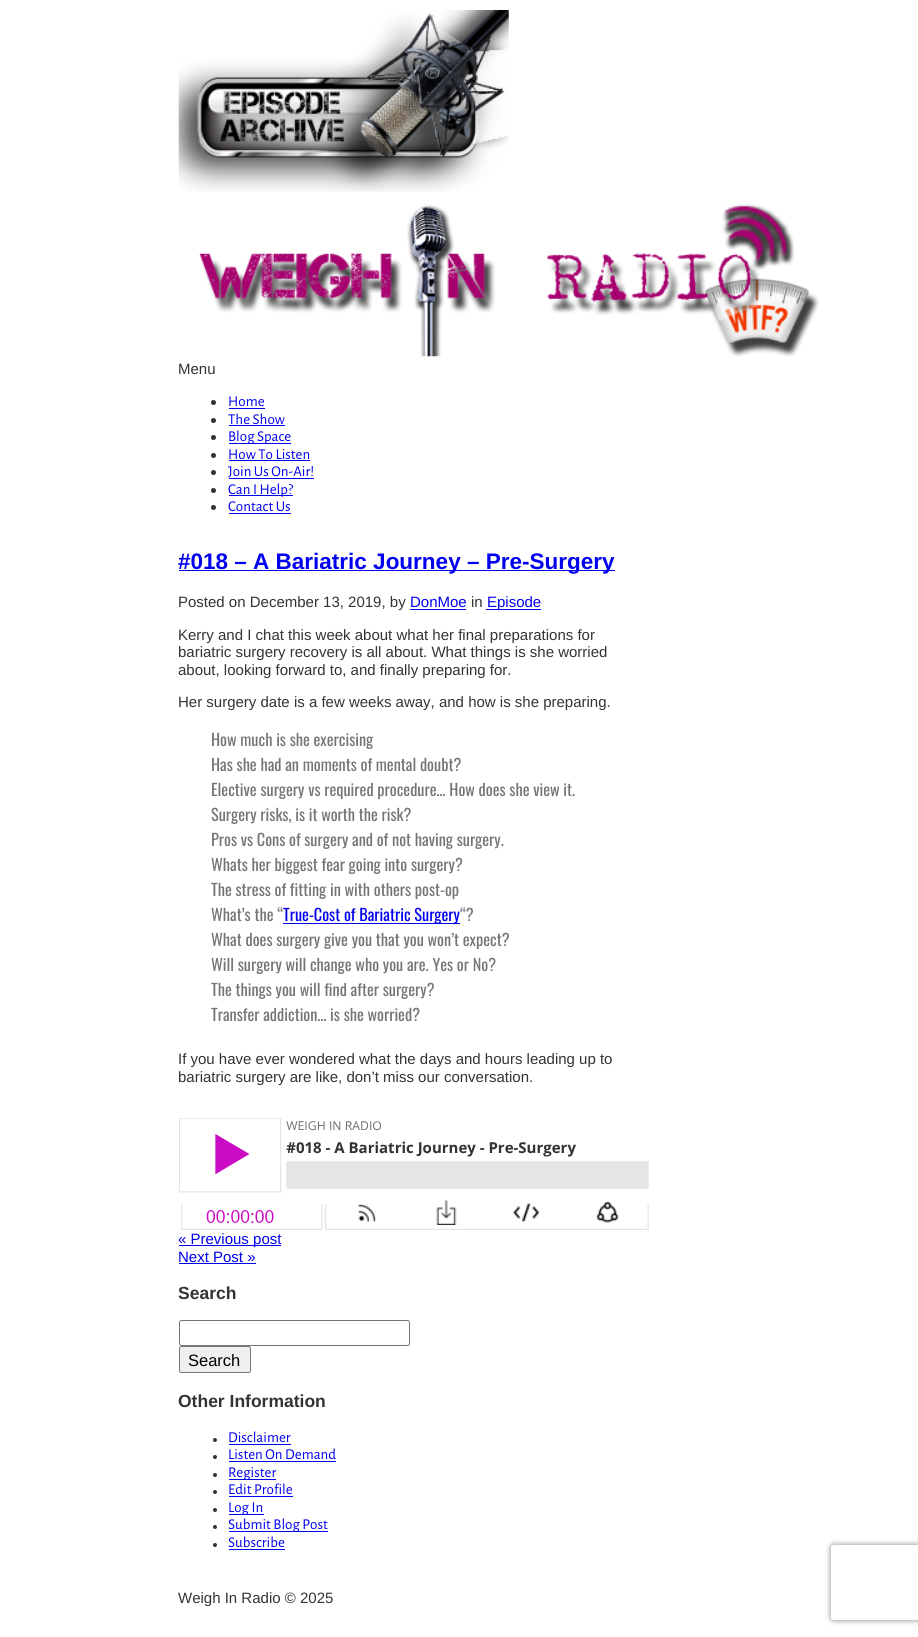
#include <cairo.h>
#include <math.h>
#include <stddef.h>


static void set_color(cairo_t *cr, unsigned color) {
    cairo_set_source_rgb(cr, (color >> 16) / 255.0, (color >> 8 & 255) / 255.0, (color & 255) / 255.0);
}

static void draw_text(cairo_t *cr, double x, double y, const char *s, const char *family, double size, int italic, int bold, unsigned color) {
    cairo_select_font_face(cr, family, italic ? CAIRO_FONT_SLANT_ITALIC : CAIRO_FONT_SLANT_NORMAL,
        bold ? CAIRO_FONT_WEIGHT_BOLD : CAIRO_FONT_WEIGHT_NORMAL);
    cairo_set_font_size(cr, size);
    set_color(cr, color);
    cairo_move_to(cr, x, y);
    cairo_show_text(cr, s);
}

static void fill_rect(cairo_t *cr, double x, double y, double w, double h, unsigned color) {
    set_color(cr, color);
    cairo_rectangle(cr, x, y, w, h);
    cairo_fill(cr);
}

static void rounded_rect(cairo_t *cr, double x, double y, double w, double h, double r) {
    cairo_new_sub_path(cr);
    cairo_arc(cr, x + w - r, y + h - r, r, 0, M_PI / 2);
    cairo_arc(cr, x + r, y + h - r, r, M_PI / 2, M_PI);
    cairo_arc(cr, x + r, y + r, r, M_PI, 1.5 * M_PI);
    cairo_arc(cr, x + w - r, y + r, r, 1.5 * M_PI, 2 * M_PI);
    cairo_close_path(cr);
}

static void draw_shadow(cairo_t *cr, double x, double y, double w, double h, double r, double blur, double alpha) {
    cairo_push_group_with_content(cr, CAIRO_CONTENT_ALPHA);
    cairo_set_operator(cr, CAIRO_OPERATOR_SOURCE);
    for (int i = 15; i >= -15 && fmin(w, h) + blur * i / 3 > 0; i -= 2) {
        double e = blur * i / 6;
        cairo_set_source_rgba(cr, 0, 0, 0, alpha * erfc((i - 1) / 8.5) / 2);
        rounded_rect(cr, x - e, y - e, w + 2 * e, h + 2 * e, fmax(0, fmin(r + e + blur * .6, fmin(w, h) / 2 + e)));
        cairo_fill(cr);
    }
    cairo_pattern_t *soft = cairo_pop_group(cr);
    cairo_mask(cr, soft);
    cairo_pattern_destroy(soft);
}

static void draw_image(cairo_t *cr, const char *path, double x, double y, double w, double h) {
    cairo_surface_t *image = cairo_image_surface_create_from_png(path);
    cairo_save(cr);
    cairo_set_source_surface(cr, image, x, y);
    cairo_rectangle(cr, x, y, w, h);
    cairo_fill(cr);
    cairo_restore(cr);
    cairo_surface_destroy(image);
}

int main(void) {
    cairo_surface_t *surface = cairo_image_surface_create(CAIRO_FORMAT_RGB24, 918, 1637);
    cairo_t *cr = cairo_create(surface);
    cairo_font_options_t *options = cairo_font_options_create();
    cairo_font_options_set_hint_metrics(options, CAIRO_HINT_METRICS_OFF);
    cairo_font_options_set_hint_style(options, CAIRO_HINT_STYLE_NONE);
    cairo_set_font_options(cr, options);
    cairo_set_miter_limit(cr, 4);
    set_color(cr, 0xFFFFFF);
    cairo_paint(cr);
    draw_image(cr, "assets/img1.png", 178, 10, 331, 182);
    draw_image(cr, "assets/img2.png", 199, 204, 620, 153);
    draw_text(cr, 178, 374, "Menu", "Liberation Sans", 15, 0, 0, 0x333333);
    cairo_new_path(cr);
    cairo_arc(cr, 213.5, 402.5, 2.5, 0, 2 * M_PI);
    cairo_fill(cr);
    draw_text(cr, 228, 406, "Home", "Alegreya Sans", 15, 0, 0, 0x0000EE);
    fill_rect(cr, 229, 408, 36, 1, 0x0000EE);
    set_color(cr, 0x333333);
    cairo_new_path(cr);
    cairo_arc(cr, 213.5, 420.5, 2.5, 0, 2 * M_PI);
    cairo_fill(cr);
    draw_text(cr, 228, 424, "The Show", "Alegreya Sans", 15, 0, 0, 0x0000EE);
    fill_rect(cr, 229, 425, 56, 1, 0x0000EE);
    set_color(cr, 0x333333);
    cairo_new_path(cr);
    cairo_arc(cr, 213.5, 437.5, 2.5, 0, 2 * M_PI);
    cairo_fill(cr);
    fill_rect(cr, 229, 443, 62, 1, 0x0000EE);
    draw_text(cr, 228, 441, "Blog Space", "Alegreya Sans", 15, 0, 0, 0x0000EE);
    set_color(cr, 0x333333);
    cairo_new_path(cr);
    cairo_arc(cr, 213.5, 455.5, 2.5, 0, 2 * M_PI);
    cairo_fill(cr);
    draw_text(cr, 228, 459, "How To Listen", "Alegreya Sans", 15, 0, 0, 0x0000EE);
    fill_rect(cr, 229, 460, 81, 1, 0x0000EE);
    set_color(cr, 0x333333);
    cairo_new_path(cr);
    cairo_arc(cr, 213.5, 472.5, 2.5, 0, 2 * M_PI);
    cairo_fill(cr);
    draw_text(cr, 228, 476, "Join Us On-Air!", "Alegreya Sans", 15, 0, 0, 0x0000EE);
    fill_rect(cr, 229, 478, 85, 1, 0x0000EE);
    set_color(cr, 0x333333);
    cairo_new_path(cr);
    cairo_arc(cr, 213.5, 490.5, 2.5, 0, 2 * M_PI);
    cairo_fill(cr);
    fill_rect(cr, 229, 495, 64, 1, 0x0000EE);
    draw_text(cr, 228, 494, "Can I Help?", "Alegreya Sans", 15, 0, 0, 0x0000EE);
    set_color(cr, 0x333333);
    cairo_new_path(cr);
    cairo_arc(cr, 213.5, 507.5, 2.5, 0, 2 * M_PI);
    cairo_fill(cr);
    draw_text(cr, 228, 511, "Contact Us", "Alegreya Sans", 15, 0, 0, 0x0000EE);
    fill_rect(cr, 229, 513, 62, 1, 0x0000EE);
    fill_rect(cr, 179, 570, 436, 1, 0x0000EE);
    draw_text(cr, 178, 569, "#018 – A Bariatric Journey – Pre-Surgery", "Liberation Sans", 22.5, 0, 1, 0x0000EE);
    draw_text(cr, 178, 607, "Posted on December 13, 2019, by", "Liberation Sans", 15, 0, 0, 0x333333);
    draw_text(cr, 410, 607, "DonMoe", "Liberation Sans", 15, 0, 0, 0x0000EE);
    fill_rect(cr, 410, 609, 56, 1, 0x0000EE);
    draw_text(cr, 471, 607, "in", "Liberation Sans", 15, 0, 0, 0x333333);
    fill_rect(cr, 486, 609, 55, 1, 0x0000EE);
    draw_text(cr, 487, 607, "Episode", "Liberation Sans", 15, 0, 0, 0x0000EE);
    draw_text(cr, 178, 640, "Kerry and I chat this week about what her final preparations for", "Liberation Sans", 15, 0, 0, 0x333333);
    draw_text(cr, 178, 657, "bariatric surgery recovery is all about. What things is she worried", "Liberation Sans", 15, 0, 0, 0x333333);
    draw_text(cr, 178, 675, "about, looking forward to, and finally preparing for.", "Liberation Sans", 15, 0, 0, 0x333333);
    draw_text(cr, 178, 707, "Her surgery date is a few weeks away, and how is she preparing.", "Liberation Sans", 15, 0, 0, 0x333333);
    draw_text(cr, 211, 746, "How much is she exercising", "Oswald", 16.25, 0, 0, 0x757575);
    draw_text(cr, 211, 771, "Has she had an moments of mental doubt?", "Oswald", 16.25, 0, 0, 0x757575);
    draw_text(cr, 211, 796, "Elective surgery vs required procedure… How does she view it.", "Oswald", 16.25, 0, 0, 0x757575);
    draw_text(cr, 211, 821, "Surgery risks, is it worth the risk?", "Oswald", 16.25, 0, 0, 0x757575);
    draw_text(cr, 211, 846, "Pros vs Cons of surgery and of not having surgery.", "Oswald", 16.25, 0, 0, 0x757575);
    draw_text(cr, 211, 871, "Whats her biggest fear going into surgery?", "Oswald", 16.25, 0, 0, 0x757575);
    draw_text(cr, 211, 896, "The stress of fitting in with others post-op", "Oswald", 16.25, 0, 0, 0x757575);
    draw_text(cr, 211, 921, "What’s the “", "Oswald", 16.25, 0, 0, 0x757575);
    fill_rect(cr, 283, 923, 177, 1, 0x0000EE);
    draw_text(cr, 283, 921, "True-Cost of Bariatric Surgery", "Oswald", 16.25, 0, 0, 0x0000EE);
    draw_text(cr, 460, 921, "“?", "Oswald", 16.25, 0, 0, 0x757575);
    draw_text(cr, 211, 946, "What does surgery give you that you won’t expect?", "Oswald", 16.25, 0, 0, 0x757575);
    draw_text(cr, 211, 971, "Will surgery will change who you are. Yes or No?", "Oswald", 16.25, 0, 0, 0x757575);
    draw_text(cr, 211, 996, "The things you will find after surgery?", "Oswald", 16.25, 0, 0, 0x757575);
    draw_text(cr, 211, 1021, "Transfer addiction… is she worried?", "Oswald", 16.25, 0, 0, 0x757575);
    draw_text(cr, 178, 1064, "If you have ever wondered what the days and hours leading up to", "Liberation Sans", 15, 0, 0, 0x333333);
    draw_text(cr, 178, 1082, "bariatric surgery are like, don’t miss our conversation.", "Liberation Sans", 15, 0, 0, 0x333333);
    draw_image(cr, "assets/img3.png", 179, 1118, 470, 112);
    fill_rect(cr, 179, 1245, 102, 1, 0x0000EE);
    draw_text(cr, 178, 1244, "« Previous post", "Liberation Sans", 15, 0, 0, 0x0000EE);
    draw_text(cr, 178, 1262, "Next Post »", "Liberation Sans", 15, 0, 0, 0x0000EE);
    fill_rect(cr, 179, 1263, 77, 1, 0x0000EE);
    draw_text(cr, 178, 1299, "Search", "Liberation Sans", 17.5, 0, 1, 0x333333);
    rounded_rect(cr, 179.5, 1320.5, 230, 25, 2);
    set_color(cr, 0x767676);
    cairo_set_line_width(cr, 1);
    cairo_stroke(cr);
    set_color(cr, 0xEFEFEF);
    rounded_rect(cr, 179.5, 1346.5, 71, 26, 2);
    cairo_fill_preserve(cr);
    set_color(cr, 0x767676);
    cairo_stroke(cr);
    draw_text(cr, 188, 1366, "Search", "Liberation Sans", 16.5, 0, 0, 0x000000);
    draw_text(cr, 178, 1407, "Other Information", "Liberation Sans", 17.5, 0, 1, 0x333333);
    cairo_new_path(cr);
    cairo_arc(cr, 215, 1440, 2, 0, 2 * M_PI);
    cairo_fill(cr);
    draw_text(cr, 228, 1442, "Disclaimer", "Alegreya Sans", 15, 0, 0, 0x0000EE);
    fill_rect(cr, 229, 1444, 62, 1, 0x0000EE);
    set_color(cr, 0x333333);
    cairo_new_path(cr);
    cairo_arc(cr, 215, 1457, 2, 0, 2 * M_PI);
    cairo_fill(cr);
    draw_text(cr, 228, 1459, "Listen On Demand", "Alegreya Sans", 15, 0, 0, 0x0000EE);
    fill_rect(cr, 229, 1461, 107, 1, 0x0000EE);
    set_color(cr, 0x333333);
    cairo_new_path(cr);
    cairo_arc(cr, 215, 1475, 2, 0, 2 * M_PI);
    cairo_fill(cr);
    fill_rect(cr, 229, 1479, 47, 1, 0x0000EE);
    draw_text(cr, 228, 1477, "Register", "Alegreya Sans", 15, 0, 0, 0x0000EE);
    set_color(cr, 0x333333);
    cairo_new_path(cr);
    cairo_arc(cr, 215, 1492, 2, 0, 2 * M_PI);
    cairo_fill(cr);
    draw_text(cr, 228, 1494, "Edit Profile", "Alegreya Sans", 15, 0, 0, 0x0000EE);
    fill_rect(cr, 229, 1496, 64, 1, 0x0000EE);
    set_color(cr, 0x333333);
    cairo_new_path(cr);
    cairo_arc(cr, 215, 1510, 2, 0, 2 * M_PI);
    cairo_fill(cr);
    fill_rect(cr, 229, 1514, 35, 1, 0x0000EE);
    draw_text(cr, 228, 1512, "Log In", "Alegreya Sans", 15, 0, 0, 0x0000EE);
    set_color(cr, 0x333333);
    cairo_new_path(cr);
    cairo_arc(cr, 215, 1527, 2, 0, 2 * M_PI);
    cairo_fill(cr);
    fill_rect(cr, 229, 1531, 99, 1, 0x0000EE);
    draw_text(cr, 228, 1529, "Submit Blog Post", "Alegreya Sans", 15, 0, 0, 0x0000EE);
    set_color(cr, 0x333333);
    cairo_new_path(cr);
    cairo_arc(cr, 215, 1545, 2, 0, 2 * M_PI);
    cairo_fill(cr);
    draw_text(cr, 228, 1547, "Subscribe", "Alegreya Sans", 15, 0, 0, 0x0000EE);
    fill_rect(cr, 229, 1549, 56, 1, 0x0000EE);
    draw_text(cr, 178, 1603, "Weigh In Radio © 2025", "Liberation Sans", 15, 0, 0, 0x333333);
    cairo_save(cr);
    cairo_set_fill_rule(cr, CAIRO_FILL_RULE_EVEN_ODD);
    cairo_new_path(cr);
    cairo_move_to(cr, 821, 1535);
    cairo_line_to(cr, 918, 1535);
    cairo_line_to(cr, 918, 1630);
    cairo_line_to(cr, 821, 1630);
    cairo_close_path(cr);
    cairo_move_to(cr, 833.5, 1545);
    cairo_line_to(cr, 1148.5, 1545);
    cairo_curve_to(cr, 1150, 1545, 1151, 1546, 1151, 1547.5);
    cairo_line_to(cr, 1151, 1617.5);
    cairo_curve_to(cr, 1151, 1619, 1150, 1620, 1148.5, 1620);
    cairo_line_to(cr, 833.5, 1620);
    cairo_curve_to(cr, 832, 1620, 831, 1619, 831, 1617.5);
    cairo_line_to(cr, 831, 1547.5);
    cairo_curve_to(cr, 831, 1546, 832, 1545, 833.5, 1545);
    cairo_close_path(cr);
    cairo_clip(cr);
    set_color(cr, 0x808080);
    draw_shadow(cr, 831, 1545, 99, 75, 2.5, 3, 1);
    cairo_restore(cr);
    cairo_surface_write_to_png(surface, "output.png");
    cairo_font_options_destroy(options);
    cairo_destroy(cr);
    cairo_surface_destroy(surface);
    return 0;
}
